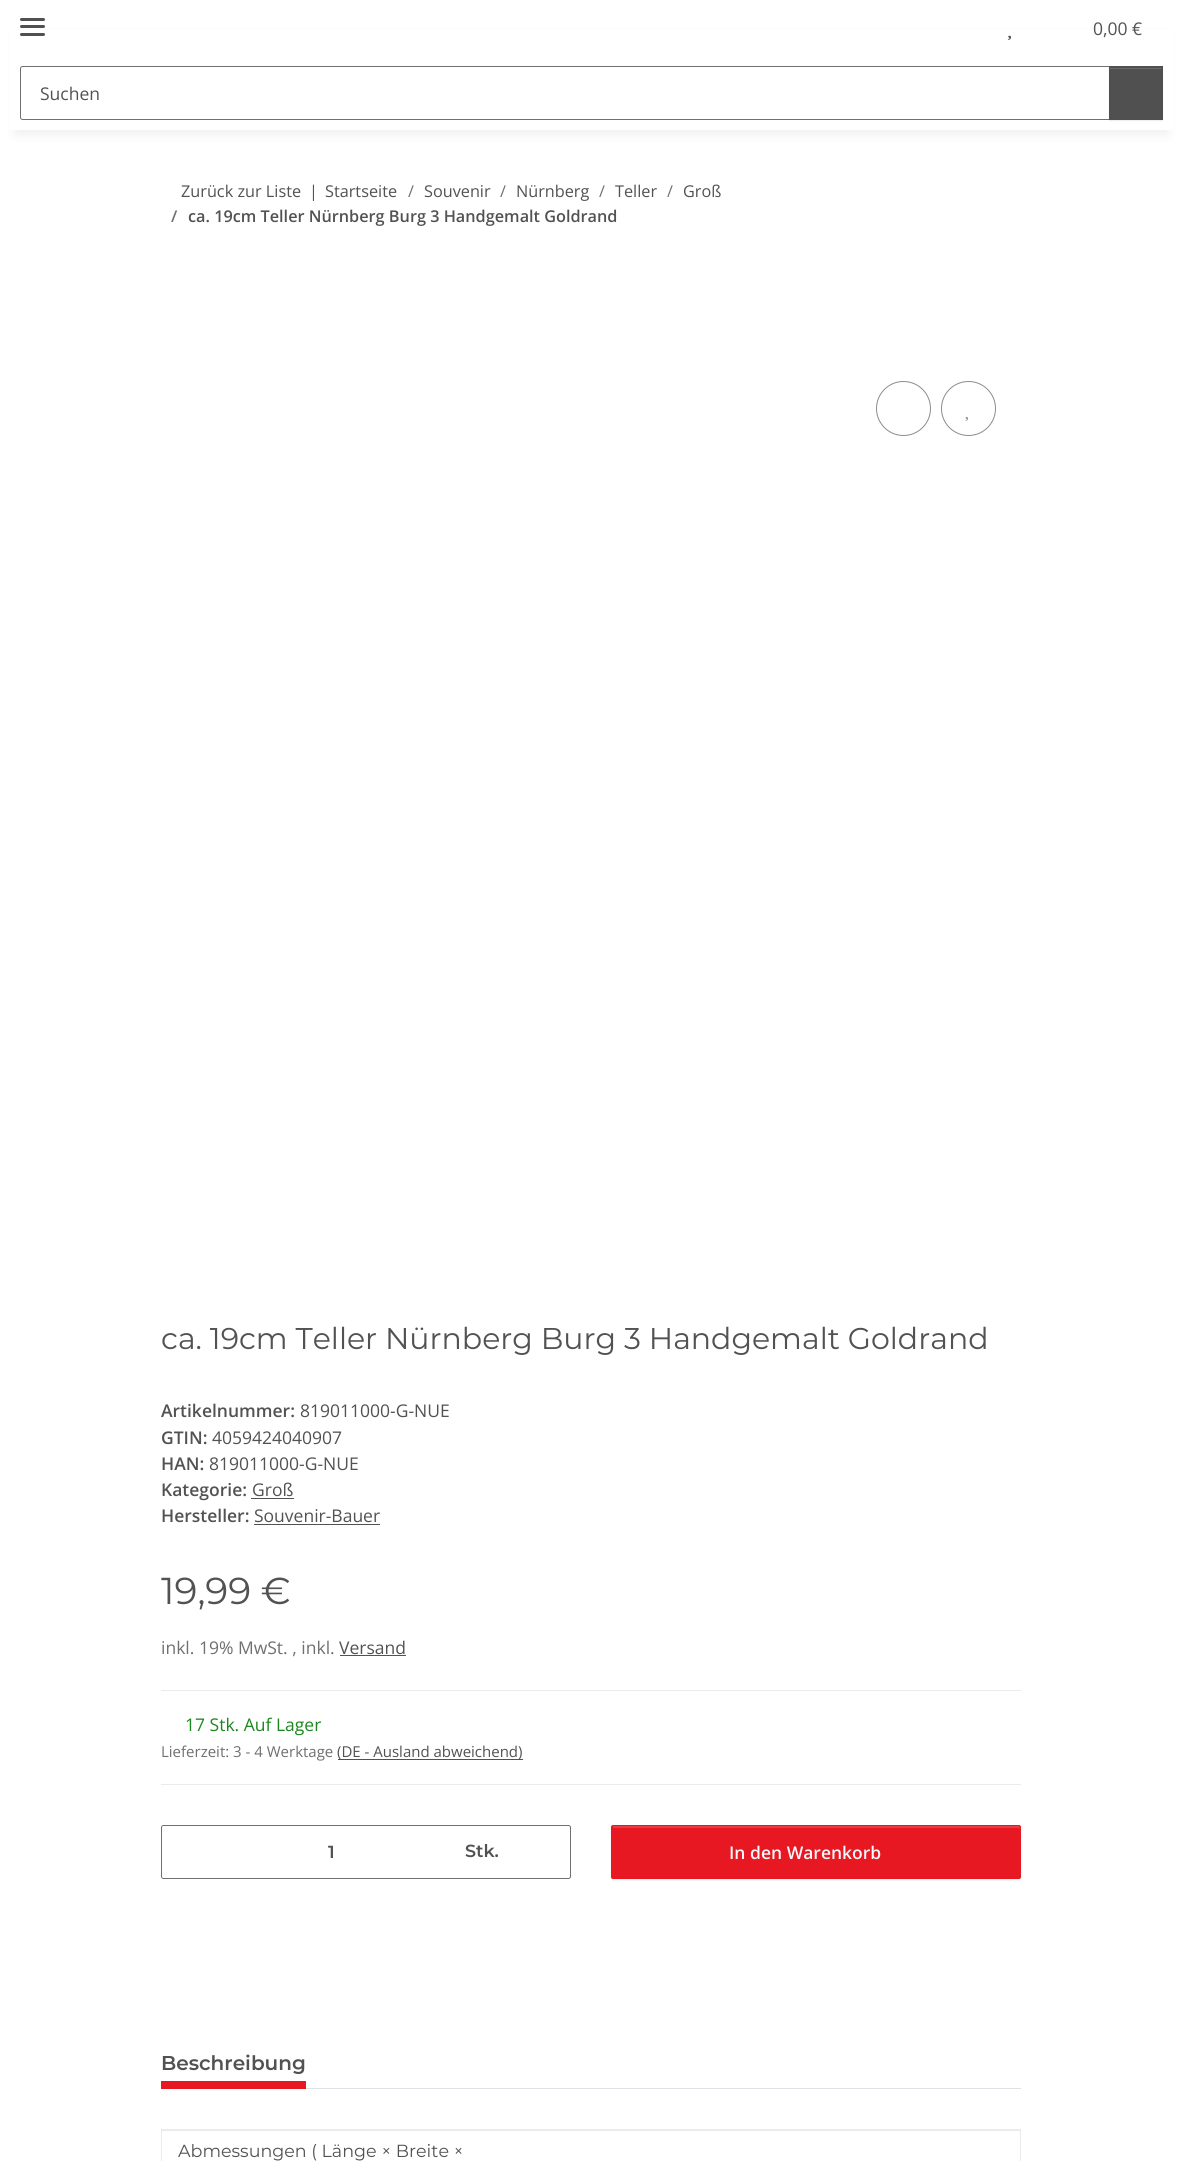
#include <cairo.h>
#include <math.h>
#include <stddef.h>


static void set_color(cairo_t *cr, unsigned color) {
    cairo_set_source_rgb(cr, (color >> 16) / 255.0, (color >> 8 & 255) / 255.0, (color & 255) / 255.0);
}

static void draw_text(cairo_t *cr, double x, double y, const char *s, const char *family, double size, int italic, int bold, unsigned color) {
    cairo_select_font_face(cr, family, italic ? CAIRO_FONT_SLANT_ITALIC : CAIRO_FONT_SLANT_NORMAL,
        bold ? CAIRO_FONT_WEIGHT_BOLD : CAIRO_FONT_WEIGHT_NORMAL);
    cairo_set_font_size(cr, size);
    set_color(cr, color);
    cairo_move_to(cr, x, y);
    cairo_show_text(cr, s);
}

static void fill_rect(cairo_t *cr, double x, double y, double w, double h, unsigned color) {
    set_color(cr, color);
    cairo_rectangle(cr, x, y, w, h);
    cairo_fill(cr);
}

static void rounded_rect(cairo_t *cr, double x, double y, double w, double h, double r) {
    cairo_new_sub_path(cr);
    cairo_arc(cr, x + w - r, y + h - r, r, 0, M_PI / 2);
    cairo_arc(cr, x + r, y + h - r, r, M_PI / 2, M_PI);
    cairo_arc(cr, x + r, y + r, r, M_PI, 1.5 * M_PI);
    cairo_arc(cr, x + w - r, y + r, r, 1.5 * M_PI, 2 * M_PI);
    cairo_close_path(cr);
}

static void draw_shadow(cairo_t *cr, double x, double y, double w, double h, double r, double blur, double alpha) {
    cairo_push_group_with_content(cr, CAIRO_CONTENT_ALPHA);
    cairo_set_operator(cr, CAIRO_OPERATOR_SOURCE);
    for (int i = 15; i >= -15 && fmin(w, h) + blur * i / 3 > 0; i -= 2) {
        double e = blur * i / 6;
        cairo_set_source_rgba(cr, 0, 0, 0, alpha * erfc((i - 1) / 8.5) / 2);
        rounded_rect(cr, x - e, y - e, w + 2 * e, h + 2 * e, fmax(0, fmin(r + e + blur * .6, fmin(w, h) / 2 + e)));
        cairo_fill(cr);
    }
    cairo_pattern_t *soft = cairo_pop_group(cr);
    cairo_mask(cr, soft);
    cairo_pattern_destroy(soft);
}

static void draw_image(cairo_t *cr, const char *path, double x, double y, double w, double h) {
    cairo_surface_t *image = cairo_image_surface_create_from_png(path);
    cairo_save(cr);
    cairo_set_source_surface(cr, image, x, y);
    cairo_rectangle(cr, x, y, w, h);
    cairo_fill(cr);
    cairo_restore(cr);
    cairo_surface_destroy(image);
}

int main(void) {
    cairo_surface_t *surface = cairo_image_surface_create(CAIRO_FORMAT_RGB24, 1182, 2161);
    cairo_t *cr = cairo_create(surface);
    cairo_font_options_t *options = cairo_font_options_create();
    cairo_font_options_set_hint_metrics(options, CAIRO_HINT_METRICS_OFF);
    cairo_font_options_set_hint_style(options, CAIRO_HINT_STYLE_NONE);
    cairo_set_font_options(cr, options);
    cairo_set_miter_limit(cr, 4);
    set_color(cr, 0xFFFFFF);
    cairo_paint(cr);
    set_color(cr, 0x000000);
    draw_shadow(cr, 15, 35, 1153, 100, 0, 5.5, 0.06);
    fill_rect(cr, 10, 30, 1163, 100, 0xFFFFFF);
    set_color(cr, 0x505050);
    rounded_rect(cr, 20, 25, 25, 3, 1.5);
    cairo_fill(cr);
    rounded_rect(cr, 20, 18, 25, 3, 1.5);
    cairo_fill(cr);
    rounded_rect(cr, 20, 33, 25, 3, 1.5);
    cairo_fill(cr);
    draw_image(cr, "assets/img1.png", 1007, 35, 4, 5);
    draw_text(cr, 1093, 35, "0,00 €", "Open Sans", 17.5, 0, 0, 0x525252);
    cairo_new_path(cr);
    cairo_move_to(cr, 22.5, 66.5);
    cairo_line_to(cr, 1109.5, 66.5);
    cairo_line_to(cr, 1109.5, 119.5);
    cairo_line_to(cr, 22.5, 119.5);
    cairo_curve_to(cr, 21.5, 119.5, 20.5, 118.5, 20.5, 117.5);
    cairo_line_to(cr, 20.5, 68.5);
    cairo_curve_to(cr, 20.5, 67.5, 21.5, 66.5, 22.5, 66.5);
    cairo_close_path(cr);
    set_color(cr, 0x707070);
    cairo_set_line_width(cr, 1);
    cairo_stroke(cr);
    draw_text(cr, 40, 100, "Suchen", "Open Sans", 17.5, 0, 0, 0x525252);
    set_color(cr, 0x000000);
    draw_shadow(cr, 1109, 68, 54, 53, 0, 0.5, 0.07);
    fill_rect(cr, 1109, 66, 54, 54, 0x505050);
    fill_rect(cr, 1110, 68, 51, 1, 0x6A6A6A);
    draw_text(cr, 181, 197, "Zurück zur Liste", "Open Sans", 16.25, 0, 0, 0x525252);
    draw_text(cr, 309, 197, "|", "Open Sans", 16.25, 0, 0, 0x525252);
    draw_text(cr, 325, 197, "Startseite", "Open Sans", 16.25, 0, 0, 0x525252);
    draw_text(cr, 408, 197, "/", "Open Sans", 16.25, 0, 0, 0x707070);
    draw_text(cr, 424, 197, "Souvenir", "Open Sans", 16.25, 0, 0, 0x525252);
    draw_text(cr, 500, 197, "/", "Open Sans", 16.25, 0, 0, 0x707070);
    draw_text(cr, 516, 197, "Nürnberg", "Open Sans", 16.25, 0, 0, 0x525252);
    draw_text(cr, 599, 197, "/", "Open Sans", 16.25, 0, 0, 0x707070);
    draw_text(cr, 615, 197, "Teller", "Open Sans", 16.25, 0, 0, 0x525252);
    draw_text(cr, 667, 197, "/", "Open Sans", 16.25, 0, 0, 0x707070);
    draw_text(cr, 683, 197, "Groß", "Open Sans", 16.25, 0, 0, 0x525252);
    draw_text(cr, 171, 222, "/", "Open Sans SemiBold", 16.25, 0, 0, 0x707070);
    draw_text(cr, 188, 222, "ca. 19cm Teller Nürnberg Burg 3 Handgemalt Goldrand", "Open Sans SemiBold", 16.25, 0, 0, 0x525252);
    cairo_new_path(cr);
    cairo_arc(cr, 903.5, 408.5, 27, 0, 2 * M_PI);
    set_color(cr, 0x8D8D8D);
    cairo_stroke(cr);
    cairo_arc(cr, 968.5, 408.5, 27, 0, 2 * M_PI);
    cairo_stroke(cr);
    draw_image(cr, "assets/img2.png", 965, 417, 3, 4);
    draw_text(cr, 161, 1349, "ca. 19cm Teller Nürnberg Burg 3 Handgemalt Goldrand", "Montserrat", 30, 0, 0, 0x525252);
    draw_text(cr, 161, 1417, "Artikelnummer:", "Open Sans SemiBold", 17.5, 0, 0, 0x525252);
    draw_text(cr, 300, 1417, "819011000-G-NUE", "Open Sans", 17.5, 0, 0, 0x525252);
    draw_text(cr, 161, 1444, "GTIN:", "Open Sans SemiBold", 17.5, 0, 0, 0x525252);
    draw_text(cr, 212, 1444, "4059424040907", "Open Sans", 17.5, 0, 0, 0x525252);
    draw_text(cr, 161, 1470, "HAN:", "Open Sans SemiBold", 17.5, 0, 0, 0x525252);
    draw_text(cr, 209, 1470, "819011000-G-NUE", "Open Sans", 17.5, 0, 0, 0x525252);
    draw_text(cr, 161, 1496, "Kategorie:", "Open Sans SemiBold", 17.5, 0, 0, 0x525252);
    draw_text(cr, 252, 1496, "Groß", "Open Sans", 17.5, 0, 0, 0x525252);
    fill_rect(cr, 251, 1498, 43, 1, 0x525252);
    draw_text(cr, 161, 1522, "Hersteller:", "Open Sans SemiBold", 17.5, 0, 0, 0x525252);
    draw_text(cr, 254, 1522, "Souvenir-Bauer", "Open Sans", 17.5, 0, 0, 0x525252);
    fill_rect(cr, 254, 1524, 126, 1, 0x525252);
    draw_text(cr, 161, 1604, "19,99 €", "Montserrat", 37.5, 0, 0, 0x525252);
    draw_text(cr, 161, 1654, "inkl. 19% MwSt. , inkl.", "Open Sans", 17.5, 0, 0, 0x707070);
    draw_text(cr, 339, 1654, "Versand", "Open Sans", 17.5, 0, 0, 0x525252);
    fill_rect(cr, 340, 1655, 66, 1, 0x525252);
    fill_rect(cr, 161, 1690, 860, 1, 0xEBEBEB);
    fill_rect(cr, 161, 1784, 860, 1, 0xEBEBEB);
    draw_text(cr, 185, 1731, "17 Stk. Auf Lager", "Open Sans", 17.5, 0, 0, 0x1C871E);
    draw_text(cr, 161, 1757, "Lieferzeit: 3 - 4 Werktage", "Open Sans", 15, 0, 0, 0x707070);
    fill_rect(cr, 338, 1759, 185, 1, 0x525252);
    draw_text(cr, 337, 1757, "(DE - Ausland abweichend)", "Open Sans", 15, 0, 0, 0x525252);
    rounded_rect(cr, 161.5, 1825.5, 409, 53, 2);
    set_color(cr, 0x707070);
    cairo_stroke(cr);
    draw_text(cr, 328, 1858, "1", "Montserrat SemiBold", 17.5, 0, 0, 0x525252);
    draw_text(cr, 465, 1857, "Stk.", "Montserrat SemiBold", 17.5, 0, 0, 0x525252);
    set_color(cr, 0x000000);
    draw_shadow(cr, 611, 1826, 410, 54, 2.5, 0.5, 0.07);
    set_color(cr, 0xE71821);
    rounded_rect(cr, 611, 1825, 410, 54, 2.5);
    cairo_fill(cr);
    set_color(cr, 0xEB3B42);
    cairo_new_path(cr);
    cairo_move_to(cr, 614, 1828);
    cairo_line_to(cr, 1019, 1828);
    cairo_line_to(cr, 1020, 1829);
    cairo_curve_to(cr, 1020, 1828, 1020, 1826, 1019, 1826);
    cairo_line_to(cr, 613, 1826);
    cairo_line_to(cr, 613, 1828);
    cairo_close_path(cr);
    cairo_fill(cr);
    rounded_rect(cr, 611.5, 1825.5, 409, 53, 2);
    set_color(cr, 0xE71821);
    cairo_stroke(cr);
    draw_text(cr, 729, 1859, "In den Warenkorb", "Open Sans SemiBold", 17.5, 0, 0, 0xF5F7FA);
    fill_rect(cr, 306, 2088, 715, 1, 0xDEE2E6);
    draw_text(cr, 161, 2070, "Beschreibung", "Montserrat SemiBold", 20, 0, 0, 0x525252);
    fill_rect(cr, 161, 2081, 145, 8, 0xE71821);
    fill_rect(cr, 161, 2129, 860, 2, 0xEBEBEB);
    fill_rect(cr, 1020, 2130, 1, 31, 0xEBEBEB);
    fill_rect(cr, 161, 2130, 1, 31, 0xEBEBEB);
    draw_text(cr, 178, 2157, "Abmessungen ( Länge × Breite ×", "Montserrat", 17.5, 0, 0, 0x525252);
    cairo_surface_write_to_png(surface, "output.png");
    cairo_font_options_destroy(options);
    cairo_destroy(cr);
    cairo_surface_destroy(surface);
    return 0;
}
